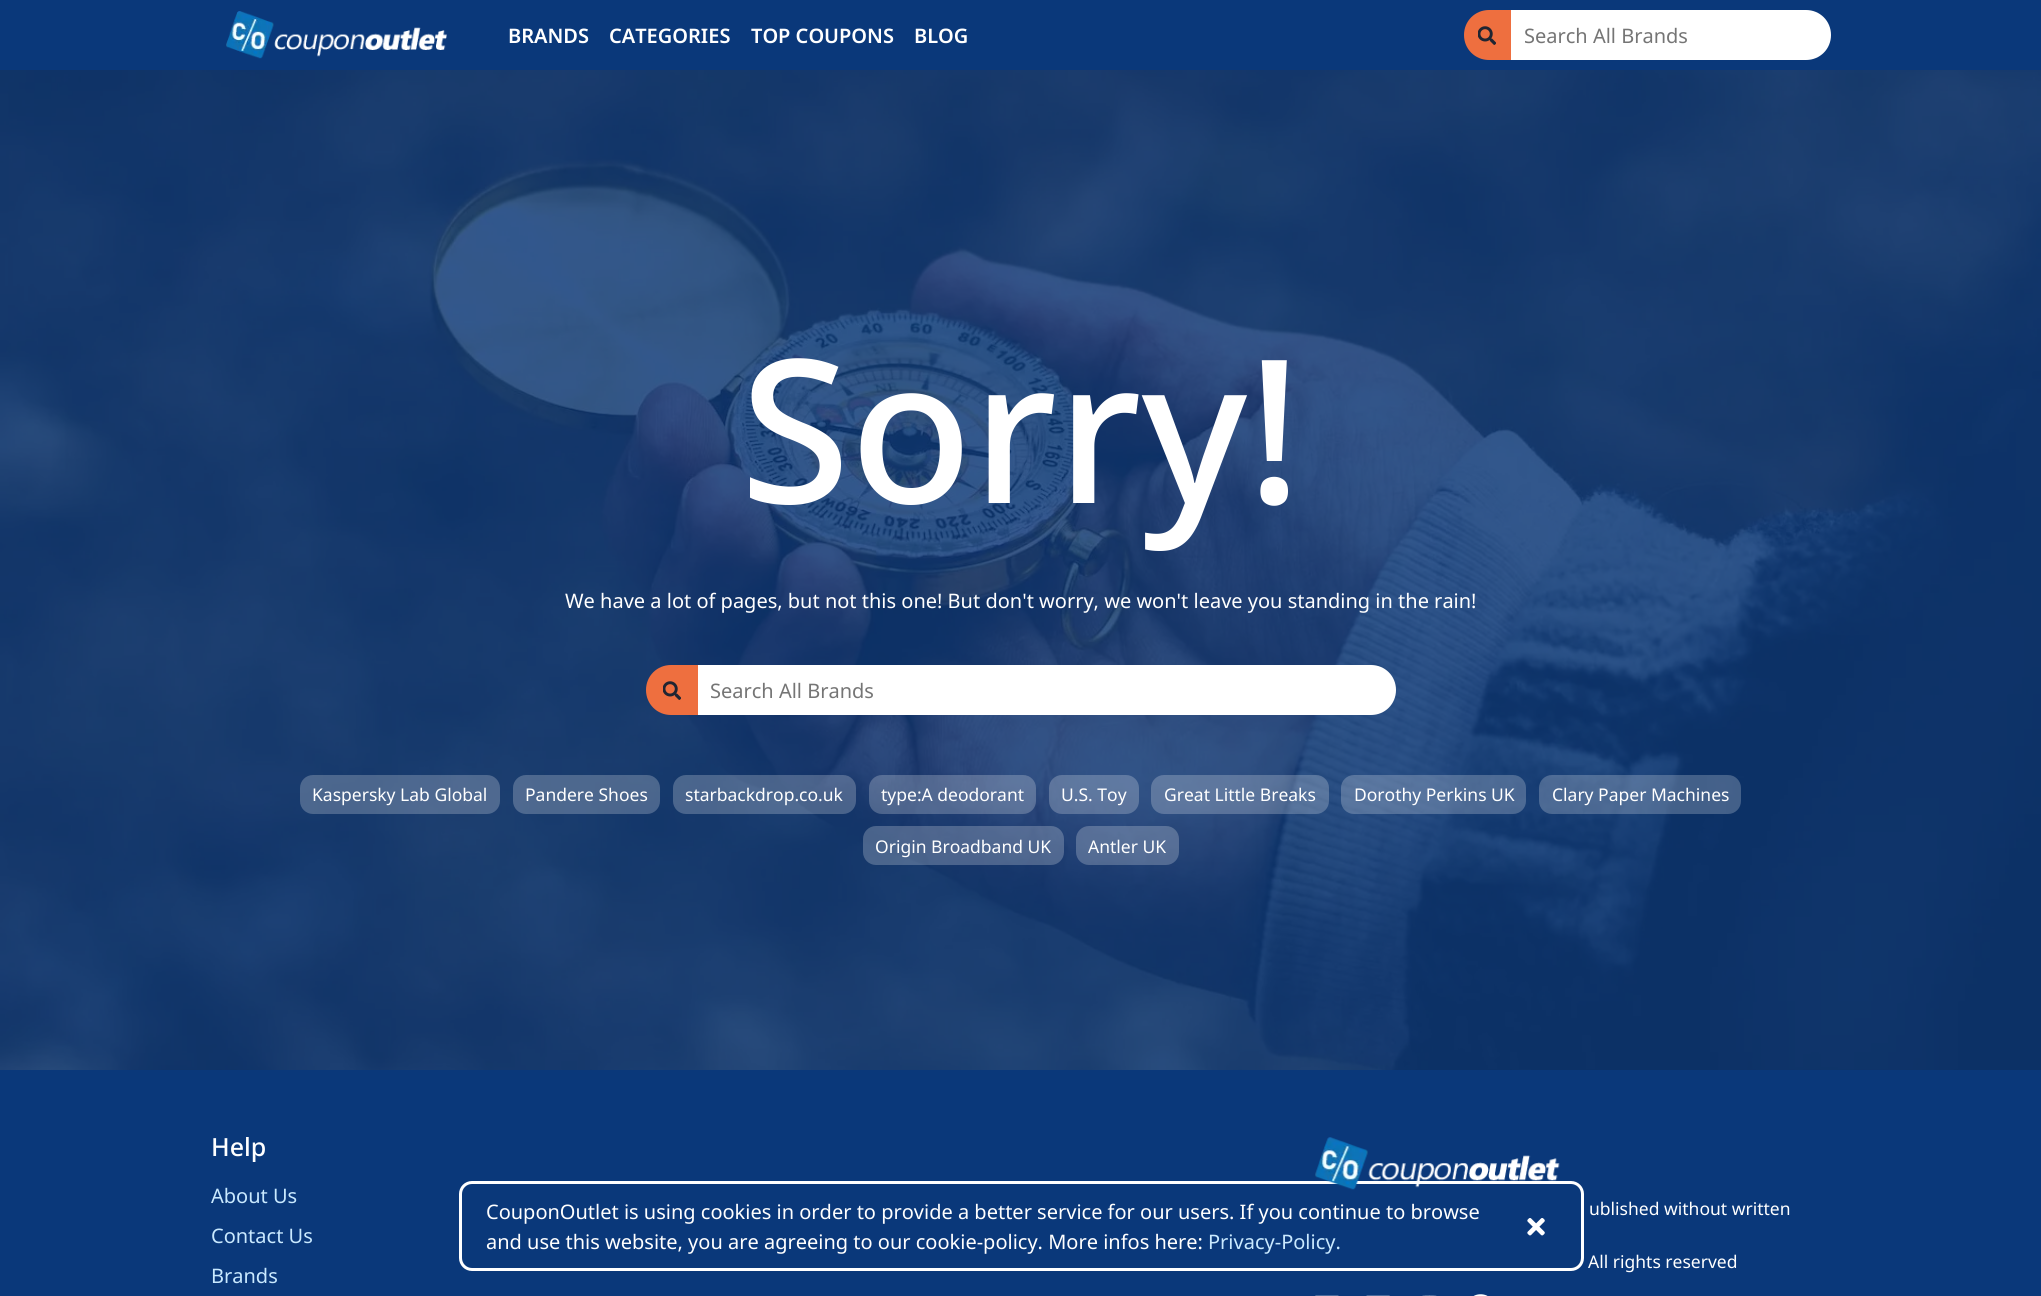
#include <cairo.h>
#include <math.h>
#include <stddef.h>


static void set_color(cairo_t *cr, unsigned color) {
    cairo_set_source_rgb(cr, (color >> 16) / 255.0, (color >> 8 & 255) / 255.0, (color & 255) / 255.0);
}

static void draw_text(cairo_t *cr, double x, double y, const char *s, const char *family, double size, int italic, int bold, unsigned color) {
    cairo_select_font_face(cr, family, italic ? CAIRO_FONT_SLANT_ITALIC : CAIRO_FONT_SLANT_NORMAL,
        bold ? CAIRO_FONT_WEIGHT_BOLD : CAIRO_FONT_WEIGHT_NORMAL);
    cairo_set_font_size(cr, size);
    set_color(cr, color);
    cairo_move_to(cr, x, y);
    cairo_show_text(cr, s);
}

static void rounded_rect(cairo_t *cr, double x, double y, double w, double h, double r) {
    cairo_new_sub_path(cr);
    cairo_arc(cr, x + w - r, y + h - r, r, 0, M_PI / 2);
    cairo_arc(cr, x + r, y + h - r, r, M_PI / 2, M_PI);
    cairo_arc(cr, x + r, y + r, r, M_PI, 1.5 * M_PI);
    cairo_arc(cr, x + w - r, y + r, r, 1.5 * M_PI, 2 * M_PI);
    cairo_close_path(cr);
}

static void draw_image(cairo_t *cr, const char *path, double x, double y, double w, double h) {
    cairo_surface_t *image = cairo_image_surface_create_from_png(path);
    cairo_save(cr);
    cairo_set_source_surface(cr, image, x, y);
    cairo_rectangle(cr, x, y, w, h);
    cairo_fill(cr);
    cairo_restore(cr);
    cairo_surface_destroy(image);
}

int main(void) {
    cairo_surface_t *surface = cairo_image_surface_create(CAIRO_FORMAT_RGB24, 2041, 1296);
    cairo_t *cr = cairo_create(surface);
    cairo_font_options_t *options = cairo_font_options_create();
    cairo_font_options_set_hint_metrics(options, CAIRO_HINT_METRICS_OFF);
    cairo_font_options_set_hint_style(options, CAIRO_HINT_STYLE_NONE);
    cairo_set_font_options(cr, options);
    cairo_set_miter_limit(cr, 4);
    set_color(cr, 0x0A387A);
    cairo_paint(cr);
    draw_image(cr, "assets/img1.png", 226, 11, 221, 48);
    draw_text(cr, 508, 43, "BRANDS", "Noto Sans SemiBold", 20, 0, 0, 0xFFFFFF);
    draw_text(cr, 609, 43, "CATEGORIES", "Noto Sans SemiBold", 20, 0, 0, 0xFFFFFF);
    draw_text(cr, 751, 43, "TOP COUPONS", "Noto Sans SemiBold", 20, 0, 0, 0xFFFFFF);
    draw_text(cr, 914, 43, "BLOG", "Noto Sans SemiBold", 20, 0, 0, 0xFFFFFF);
    set_color(cr, 0xEE6F3F);
    cairo_new_path(cr);
    cairo_move_to(cr, 1489, 10);
    cairo_line_to(cr, 1511, 10);
    cairo_line_to(cr, 1511, 60);
    cairo_line_to(cr, 1489, 60);
    cairo_curve_to(cr, 1475, 60, 1464, 49, 1464, 35);
    cairo_curve_to(cr, 1464, 21, 1475, 10, 1489, 10);
    cairo_close_path(cr);
    cairo_fill(cr);
    draw_image(cr, "assets/img2.png", 1478, 26, 18, 19);
    set_color(cr, 0xFFFFFF);
    cairo_new_path(cr);
    cairo_move_to(cr, 1511, 10);
    cairo_line_to(cr, 1806, 10);
    cairo_curve_to(cr, 1820, 10, 1831, 21, 1831, 35);
    cairo_curve_to(cr, 1831, 49, 1820, 60, 1806, 60);
    cairo_line_to(cr, 1511, 60);
    cairo_close_path(cr);
    cairo_fill(cr);
    draw_text(cr, 1524, 43, "Search All Brands", "Noto Sans", 20, 0, 0, 0x757575);
    draw_image(cr, "assets/img3.png", 0, 70, 2041, 1000);
    draw_text(cr, 740, 503, "Sorry!", "Noto Sans Medium", 200, 0, 0, 0xFFFFFF);
    draw_text(cr, 565, 608, "We have a lot of pages, but not this one! But don't worry, we won't leave you standing in the rain!", "Noto Sans", 20, 0, 0, 0xFFFFFF);
    set_color(cr, 0xEE6F3F);
    cairo_new_path(cr);
    cairo_move_to(cr, 671, 665);
    cairo_line_to(cr, 698, 665);
    cairo_line_to(cr, 698, 715);
    cairo_line_to(cr, 671, 715);
    cairo_curve_to(cr, 657, 715, 646, 704, 646, 690);
    cairo_curve_to(cr, 646, 676, 657, 665, 671, 665);
    cairo_close_path(cr);
    cairo_fill(cr);
    draw_image(cr, "assets/img2.png", 663, 681, 18, 19);
    set_color(cr, 0xFFFFFF);
    cairo_new_path(cr);
    cairo_move_to(cr, 698, 665);
    cairo_line_to(cr, 1371, 665);
    cairo_curve_to(cr, 1385, 665, 1396, 676, 1396, 690);
    cairo_curve_to(cr, 1396, 704, 1385, 715, 1371, 715);
    cairo_line_to(cr, 698, 715);
    cairo_close_path(cr);
    cairo_fill(cr);
    draw_text(cr, 710, 698, "Search All Brands", "Noto Sans", 20, 0, 0, 0x757575);
    cairo_set_source_rgba(cr, 1, 1, 1, 0.23);
    rounded_rect(cr, 300, 775, 200, 39, 13);
    cairo_fill(cr);
    draw_text(cr, 312, 801, "Kaspersky Lab Global", "Noto Sans", 17.5, 0, 0, 0xFFFFFF);
    cairo_set_source_rgba(cr, 1, 1, 1, 0.23);
    rounded_rect(cr, 513, 775, 147, 39, 13);
    cairo_fill(cr);
    draw_text(cr, 525, 801, "Pandere Shoes", "Noto Sans", 17.5, 0, 0, 0xFFFFFF);
    cairo_set_source_rgba(cr, 1, 1, 1, 0.23);
    rounded_rect(cr, 673, 775, 183, 39, 13);
    cairo_fill(cr);
    draw_text(cr, 685, 801, "starbackdrop.co.uk", "Noto Sans", 17.5, 0, 0, 0xFFFFFF);
    cairo_set_source_rgba(cr, 1, 1, 1, 0.23);
    rounded_rect(cr, 869, 775, 167, 39, 13);
    cairo_fill(cr);
    draw_text(cr, 881, 801, "type:A deodorant", "Noto Sans", 17.5, 0, 0, 0xFFFFFF);
    cairo_set_source_rgba(cr, 1, 1, 1, 0.23);
    rounded_rect(cr, 1049, 775, 90, 39, 13);
    cairo_fill(cr);
    draw_text(cr, 1061, 801, "U.S. Toy", "Noto Sans", 17.5, 0, 0, 0xFFFFFF);
    cairo_set_source_rgba(cr, 1, 1, 1, 0.23);
    rounded_rect(cr, 1151, 775, 178, 39, 13);
    cairo_fill(cr);
    draw_text(cr, 1164, 801, "Great Little Breaks", "Noto Sans", 17.5, 0, 0, 0xFFFFFF);
    cairo_set_source_rgba(cr, 1, 1, 1, 0.23);
    rounded_rect(cr, 1341, 775, 185, 39, 13);
    cairo_fill(cr);
    draw_text(cr, 1354, 801, "Dorothy Perkins UK", "Noto Sans", 17.5, 0, 0, 0xFFFFFF);
    cairo_set_source_rgba(cr, 1, 1, 1, 0.23);
    rounded_rect(cr, 1539, 775, 202, 39, 13);
    cairo_fill(cr);
    draw_text(cr, 1552, 801, "Clary Paper Machines", "Noto Sans", 17.5, 0, 0, 0xFFFFFF);
    cairo_set_source_rgba(cr, 1, 1, 1, 0.23);
    rounded_rect(cr, 863, 826, 201, 39, 13);
    cairo_fill(cr);
    draw_text(cr, 875, 853, "Origin Broadband UK", "Noto Sans", 17.5, 0, 0, 0xFFFFFF);
    cairo_set_source_rgba(cr, 1, 1, 1, 0.23);
    rounded_rect(cr, 1076, 826, 103, 39, 13);
    cairo_fill(cr);
    draw_text(cr, 1088, 853, "Antler UK", "Noto Sans", 17.5, 0, 0, 0xFFFFFF);
    draw_text(cr, 211, 1156, "Help", "Noto Sans Medium", 25, 0, 0, 0xFFFFFF);
    draw_text(cr, 211, 1203, "About Us", "Noto Sans", 20, 0, 0, 0xC9E9FF);
    draw_text(cr, 211, 1243, "Contact Us", "Noto Sans", 20, 0, 0, 0xC9E9FF);
    draw_text(cr, 211, 1283, "Brands", "Noto Sans", 20, 0, 0, 0xC9E9FF);
    rounded_rect(cr, 460.5, 1182.5, 1122, 87, 11.5);
    set_color(cr, 0xFFFFFF);
    cairo_set_line_width(cr, 3);
    cairo_stroke(cr);
    draw_image(cr, "assets/img4.png", 1315, 1137, 245, 53);
    draw_text(cr, 1589, 1215, "ublished without written", "Noto Sans", 17.5, 0, 0, 0xFFFFFF);
    draw_text(cr, 1588, 1268, "All rights reserved", "Noto Sans", 17.5, 0, 0, 0xFFFFFF);
    draw_image(cr, "assets/img5.png", 1315, 1295, 24, 1);
    draw_image(cr, "assets/img6.png", 1366, 1295, 24, 1);
    draw_image(cr, "assets/img7.png", 1422, 1295, 15, 1);
    draw_image(cr, "assets/img8.png", 1473, 1294, 15, 2);
    draw_text(cr, 486, 1219, "CouponOutlet is using cookies in order to provide a better service for our users. If you continue to browse", "Noto Sans", 20, 0, 0, 0xFFFFFF);
    draw_text(cr, 486, 1249, "and use this website, you are agreeing to our cookie-policy. More infos here:", "Noto Sans", 20, 0, 0, 0xFFFFFF);
    draw_text(cr, 1208, 1249, "Privacy-Policy.", "Noto Sans", 20, 0, 0, 0xC9E9FF);
    draw_image(cr, "assets/img9.png", 1527, 1218, 18, 18);
    cairo_surface_write_to_png(surface, "output.png");
    cairo_font_options_destroy(options);
    cairo_destroy(cr);
    cairo_surface_destroy(surface);
    return 0;
}
